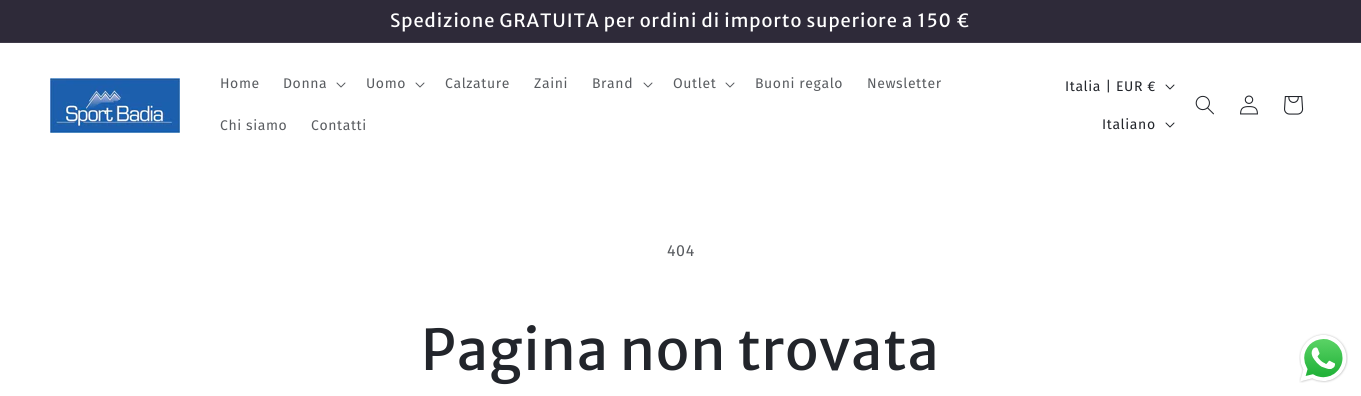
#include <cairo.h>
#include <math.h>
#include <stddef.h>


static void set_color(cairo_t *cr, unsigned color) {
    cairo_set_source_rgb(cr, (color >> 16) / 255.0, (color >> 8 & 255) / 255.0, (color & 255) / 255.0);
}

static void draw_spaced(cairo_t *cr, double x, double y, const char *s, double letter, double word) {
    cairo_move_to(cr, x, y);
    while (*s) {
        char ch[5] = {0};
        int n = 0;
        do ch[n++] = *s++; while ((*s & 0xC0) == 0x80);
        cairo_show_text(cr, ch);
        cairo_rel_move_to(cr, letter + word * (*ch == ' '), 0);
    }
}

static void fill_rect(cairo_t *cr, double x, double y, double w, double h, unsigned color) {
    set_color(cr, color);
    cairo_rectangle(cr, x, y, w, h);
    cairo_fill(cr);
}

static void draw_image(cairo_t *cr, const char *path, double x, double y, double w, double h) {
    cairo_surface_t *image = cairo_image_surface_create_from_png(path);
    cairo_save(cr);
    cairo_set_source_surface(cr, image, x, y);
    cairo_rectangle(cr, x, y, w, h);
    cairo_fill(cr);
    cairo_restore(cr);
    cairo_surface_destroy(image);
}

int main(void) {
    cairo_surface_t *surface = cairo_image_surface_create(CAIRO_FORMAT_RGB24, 1361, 396);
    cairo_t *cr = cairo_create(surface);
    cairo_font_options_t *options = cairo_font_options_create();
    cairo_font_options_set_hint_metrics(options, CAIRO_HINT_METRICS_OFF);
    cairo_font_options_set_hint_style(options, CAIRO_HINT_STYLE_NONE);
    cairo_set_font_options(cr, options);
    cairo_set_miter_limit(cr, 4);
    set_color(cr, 0xFFFFFF);
    cairo_paint(cr);
    fill_rect(cr, 0, 0, 1361, 42, 0x2E2A39);
    fill_rect(cr, 0, 42, 1361, 1, 0x3F3B49);
    cairo_select_font_face(cr, "Merriweather Sans", CAIRO_FONT_SLANT_NORMAL, CAIRO_FONT_WEIGHT_NORMAL);
    cairo_set_font_size(cr, 18.2);
    set_color(cr, 0xFFFFFF);
    draw_spaced(cr, 390, 27, "Spedizione GRATUITA per ordini di importo superiore a 150 €", 1, 0);
    draw_image(cr, "assets/img1.png", 50, 78, 130, 55);
    cairo_select_font_face(cr, "Fira Sans", CAIRO_FONT_SLANT_NORMAL, CAIRO_FONT_WEIGHT_NORMAL);
    cairo_set_font_size(cr, 14);
    set_color(cr, 0x595C60);
    draw_spaced(cr, 220, 88, "Home", 0.6, 0);
    draw_spaced(cr, 283, 88, "Donna", 0.6, 0);
    draw_image(cr, "assets/img2.png", 336, 82, 10, 6);
    draw_spaced(cr, 366, 88, "Uomo", 0.6, 0);
    draw_image(cr, "assets/img2.png", 415, 82, 10, 6);
    draw_spaced(cr, 445, 88, "Calzature", 0.6, 0);
    draw_spaced(cr, 534, 88, "Zaini", 0.6, 0);
    draw_spaced(cr, 592, 88, "Brand", 0.6, 0);
    draw_image(cr, "assets/img2.png", 643, 82, 10, 6);
    draw_spaced(cr, 673, 88, "Outlet", 0.6, 0);
    draw_image(cr, "assets/img2.png", 725, 82, 10, 6);
    draw_spaced(cr, 755, 88, "Buoni regalo", 0.6, 0);
    draw_spaced(cr, 867, 88, "Newsletter", 0.6, 0);
    draw_spaced(cr, 220, 130, "Chi siamo", 0.6, 0);
    draw_spaced(cr, 311, 130, "Contatti", 0.6, 0);
    set_color(cr, 0x22252B);
    draw_spaced(cr, 1065, 91, "Italia | EUR €", 0.6, 0);
    draw_image(cr, "assets/img3.png", 1165, 84, 10, 6);
    draw_spaced(cr, 1102, 129, "Italiano", 0.6, 0);
    draw_image(cr, "assets/img3.png", 1165, 122, 10, 6);
    draw_image(cr, "assets/img4.png", 1195, 95, 19, 20);
    draw_image(cr, "assets/img5.png", 1240, 95, 18, 20);
    draw_image(cr, "assets/img6.png", 1284, 96, 20, 19);
    cairo_set_font_size(cr, 16);
    set_color(cr, 0x595C60);
    draw_spaced(cr, 667, 256, "404", 0.6, 0);
    cairo_select_font_face(cr, "Merriweather Sans", CAIRO_FONT_SLANT_NORMAL, CAIRO_FONT_WEIGHT_NORMAL);
    cairo_set_font_size(cr, 56);
    set_color(cr, 0x22252B);
    draw_spaced(cr, 421, 370, "Pagina non trovata", 0.8, 0);
    draw_image(cr, "assets/img7.png", 1299, 333, 49, 50);
    cairo_surface_write_to_png(surface, "output.png");
    cairo_font_options_destroy(options);
    cairo_destroy(cr);
    cairo_surface_destroy(surface);
    return 0;
}
